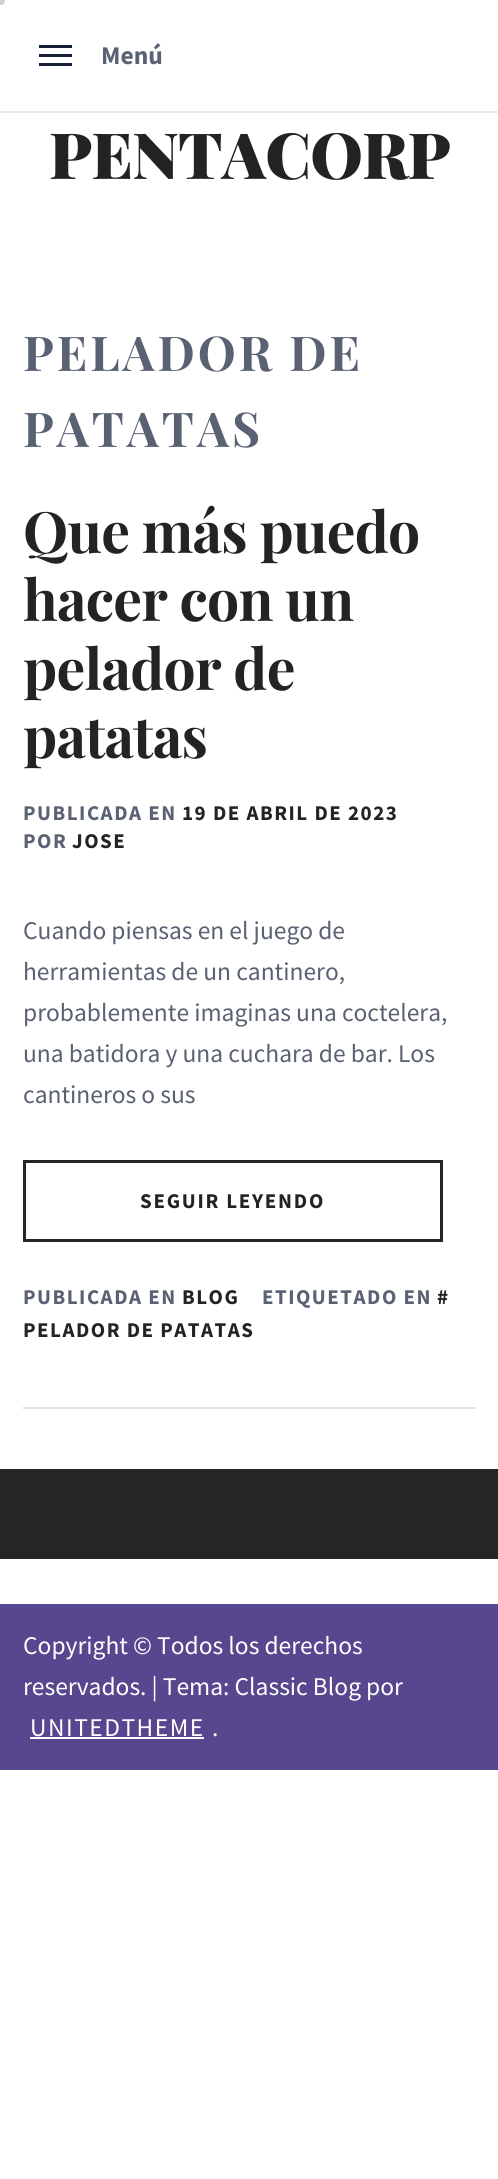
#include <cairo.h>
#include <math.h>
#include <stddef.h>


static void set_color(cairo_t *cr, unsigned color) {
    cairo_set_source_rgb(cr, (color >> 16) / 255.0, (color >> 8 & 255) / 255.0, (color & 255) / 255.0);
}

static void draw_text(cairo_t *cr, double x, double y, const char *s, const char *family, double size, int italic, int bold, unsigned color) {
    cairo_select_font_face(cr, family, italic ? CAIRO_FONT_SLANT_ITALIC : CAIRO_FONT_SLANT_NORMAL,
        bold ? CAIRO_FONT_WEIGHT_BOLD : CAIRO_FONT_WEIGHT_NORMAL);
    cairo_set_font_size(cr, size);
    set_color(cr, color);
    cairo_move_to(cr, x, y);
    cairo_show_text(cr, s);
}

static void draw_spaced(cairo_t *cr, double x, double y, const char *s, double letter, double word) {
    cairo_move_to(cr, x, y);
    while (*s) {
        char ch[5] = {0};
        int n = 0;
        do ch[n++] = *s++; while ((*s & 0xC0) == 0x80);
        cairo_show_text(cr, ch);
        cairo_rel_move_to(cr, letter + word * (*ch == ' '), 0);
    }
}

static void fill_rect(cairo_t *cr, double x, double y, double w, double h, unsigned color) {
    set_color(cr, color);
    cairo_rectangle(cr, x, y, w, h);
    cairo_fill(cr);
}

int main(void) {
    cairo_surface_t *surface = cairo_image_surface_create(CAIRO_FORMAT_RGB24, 498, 2179);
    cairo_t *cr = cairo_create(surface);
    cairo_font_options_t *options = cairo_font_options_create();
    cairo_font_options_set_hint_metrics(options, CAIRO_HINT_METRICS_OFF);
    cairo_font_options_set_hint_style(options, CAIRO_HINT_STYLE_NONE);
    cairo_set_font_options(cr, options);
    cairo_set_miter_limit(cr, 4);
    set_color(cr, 0xFFFFFF);
    cairo_paint(cr);
    set_color(cr, 0xCED0D4);
    cairo_arc(cr, 0.5, 0.5, 4.5, 0, 2 * M_PI);
    cairo_fill(cr);
    fill_rect(cr, 0, 111, 498, 2, 0xEAEAEA);
    fill_rect(cr, 39, 54, 33, 3, 0x152035);
    fill_rect(cr, 39, 45, 33, 3, 0x152035);
    fill_rect(cr, 39, 63, 33, 3, 0x152035);
    draw_text(cr, 101, 64, "Menú", "Source Sans Pro", 25.5, 0, 1, 0x596172);
    cairo_select_font_face(cr, "Playfair Display Black", CAIRO_FONT_SLANT_NORMAL, CAIRO_FONT_WEIGHT_NORMAL);
    cairo_set_font_size(cr, 63.75);
    set_color(cr, 0x232323);
    draw_spaced(cr, 49, 179, "PENTACORP", -0.75, 0);
    cairo_select_font_face(cr, "Playfair Display", CAIRO_FONT_SLANT_NORMAL, CAIRO_FONT_WEIGHT_BOLD);
    cairo_set_font_size(cr, 48);
    set_color(cr, 0x596172);
    draw_spaced(cr, 23, 371, "PELADOR DE", 3, 0);
    draw_spaced(cr, 23, 447, "PATATAS", 3, 0);
    fill_rect(cr, 23, 1407, 453, 2, 0xE2E2E2);
    cairo_set_font_size(cr, 57);
    set_color(cr, 0x232323);
    draw_spaced(cr, 23, 553, "Que más puedo", -0.75, 0);
    draw_spaced(cr, 23, 621, "hacer con un", -0.75, 0);
    draw_spaced(cr, 23, 690, "pelador de", -0.75, 0);
    draw_spaced(cr, 23, 758, "patatas", -0.75, 0);
    cairo_select_font_face(cr, "Source Sans Pro", CAIRO_FONT_SLANT_NORMAL, CAIRO_FONT_WEIGHT_BOLD);
    cairo_set_font_size(cr, 21);
    set_color(cr, 0x596172);
    draw_spaced(cr, 23, 820, "PUBLICADA EN", 1.5, 0);
    set_color(cr, 0x232323);
    draw_spaced(cr, 182, 820, "19 DE ABRIL DE 2023", 1.5, 0);
    set_color(cr, 0x596172);
    draw_spaced(cr, 23, 848, "POR", 1.5, 0);
    set_color(cr, 0x232323);
    draw_spaced(cr, 72, 848, "JOSE", 1.5, 0);
    draw_text(cr, 23, 939, "Cuando piensas en el juego de", "Source Sans Pro", 25.5, 0, 0, 0x596172);
    draw_text(cr, 23, 980, "herramientas de un cantinero,", "Source Sans Pro", 25.5, 0, 0, 0x596172);
    draw_text(cr, 23, 1021, "probablemente imaginas una coctelera,", "Source Sans Pro", 25.5, 0, 0, 0x596172);
    draw_text(cr, 23, 1062, "una batidora y una cuchara de bar. Los", "Source Sans Pro", 25.5, 0, 0, 0x596172);
    draw_text(cr, 23, 1103, "cantineros o sus", "Source Sans Pro", 25.5, 0, 0, 0x596172);
    cairo_rectangle(cr, 24.5, 1161.5, 417, 79);
    set_color(cr, 0x262626);
    cairo_set_line_width(cr, 3);
    cairo_stroke(cr);
    cairo_select_font_face(cr, "Source Sans Pro", CAIRO_FONT_SLANT_NORMAL, CAIRO_FONT_WEIGHT_BOLD);
    cairo_set_font_size(cr, 21);
    set_color(cr, 0x232323);
    draw_spaced(cr, 140, 1208, "SEGUIR LEYENDO", 1.75, 0);
    set_color(cr, 0x596172);
    draw_spaced(cr, 23, 1304, "PUBLICADA EN", 1.5, 0);
    set_color(cr, 0x232323);
    draw_spaced(cr, 437, 1304, "#", 1.5, 0);
    draw_spaced(cr, 23, 1337, "PELADOR DE PATATAS", 1.5, 0);
    set_color(cr, 0x596172);
    draw_spaced(cr, 262, 1304, "ETIQUETADO EN", 1.5, 0);
    set_color(cr, 0x232323);
    draw_spaced(cr, 182, 1304, "BLOG", 1.5, 0);
    fill_rect(cr, 0, 1469, 498, 90, 0x262626);
    fill_rect(cr, 0, 1604, 498, 166, 0x57478F);
    draw_text(cr, 23, 1654, "Copyright © Todos los derechos", "Source Sans Pro", 25.5, 0, 0, 0xFFFFFF);
    draw_text(cr, 23, 1695, "reservados. | Tema: Classic Blog por", "Source Sans Pro", 25.5, 0, 0, 0xFFFFFF);
    draw_spaced(cr, 30, 1736, "UNITEDTHEME", 1.5, 0);
    fill_rect(cr, 30, 1737, 174, 2, 0xFFFFFF);
    draw_text(cr, 212, 1736, ".", "Source Sans Pro", 25.5, 0, 0, 0xFFFFFF);
    cairo_surface_write_to_png(surface, "output.png");
    cairo_font_options_destroy(options);
    cairo_destroy(cr);
    cairo_surface_destroy(surface);
    return 0;
}
